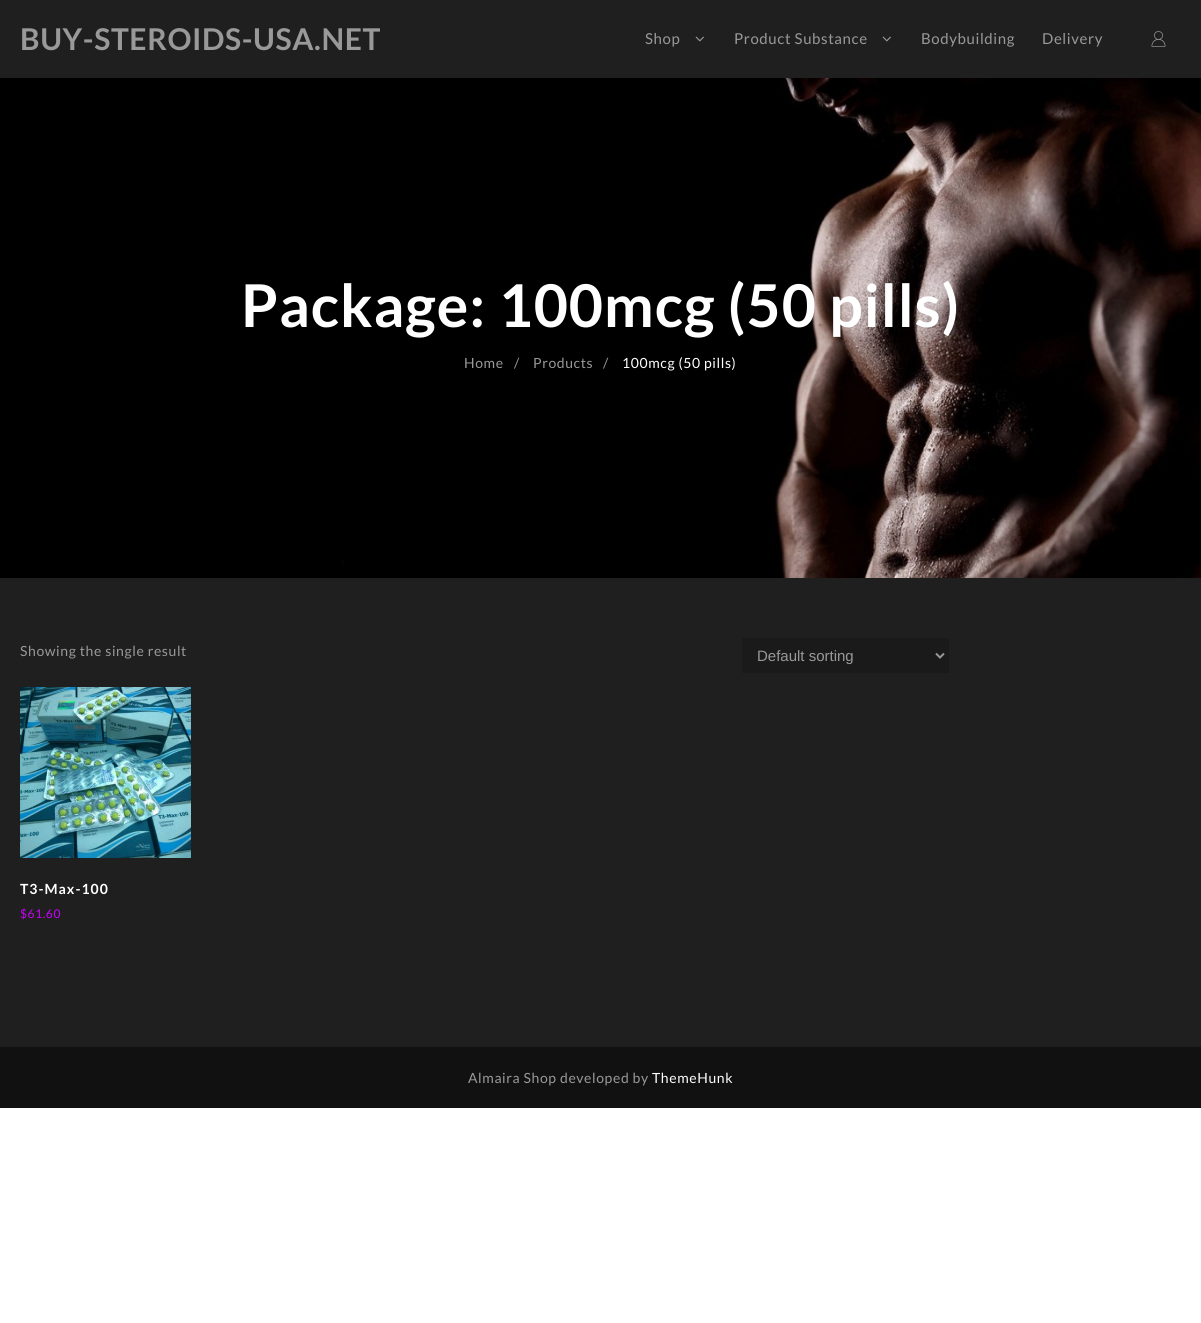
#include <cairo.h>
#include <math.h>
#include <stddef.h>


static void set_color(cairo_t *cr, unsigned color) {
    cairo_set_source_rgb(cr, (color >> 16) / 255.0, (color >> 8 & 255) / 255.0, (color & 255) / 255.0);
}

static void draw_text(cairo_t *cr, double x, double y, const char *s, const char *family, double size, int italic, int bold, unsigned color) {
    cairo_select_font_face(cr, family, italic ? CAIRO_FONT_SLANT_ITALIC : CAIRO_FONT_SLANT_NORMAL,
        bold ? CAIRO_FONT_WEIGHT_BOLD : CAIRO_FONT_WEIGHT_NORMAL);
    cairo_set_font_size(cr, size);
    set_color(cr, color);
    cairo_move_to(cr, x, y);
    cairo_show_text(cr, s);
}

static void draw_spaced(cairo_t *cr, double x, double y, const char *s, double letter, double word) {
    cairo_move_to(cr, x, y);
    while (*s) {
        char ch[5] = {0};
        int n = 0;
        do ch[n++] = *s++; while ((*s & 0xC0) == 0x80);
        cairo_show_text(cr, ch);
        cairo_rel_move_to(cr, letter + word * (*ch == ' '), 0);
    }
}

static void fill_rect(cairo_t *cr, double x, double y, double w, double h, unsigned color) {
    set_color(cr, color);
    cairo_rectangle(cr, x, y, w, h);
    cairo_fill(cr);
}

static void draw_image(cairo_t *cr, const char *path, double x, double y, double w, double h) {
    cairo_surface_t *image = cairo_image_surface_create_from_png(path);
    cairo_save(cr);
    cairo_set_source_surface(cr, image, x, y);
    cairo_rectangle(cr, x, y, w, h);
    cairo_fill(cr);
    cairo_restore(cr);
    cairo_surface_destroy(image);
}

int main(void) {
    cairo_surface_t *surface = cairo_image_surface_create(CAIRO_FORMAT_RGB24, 1201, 1323);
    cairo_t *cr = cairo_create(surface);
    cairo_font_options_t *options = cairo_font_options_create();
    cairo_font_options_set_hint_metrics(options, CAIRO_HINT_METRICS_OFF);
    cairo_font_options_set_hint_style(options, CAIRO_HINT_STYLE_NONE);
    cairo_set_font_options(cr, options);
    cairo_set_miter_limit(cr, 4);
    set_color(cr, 0xFFFFFF);
    cairo_paint(cr);
    fill_rect(cr, 0, 0, 1201, 78, 0x1F1F1F);
    cairo_select_font_face(cr, "Lato", CAIRO_FONT_SLANT_NORMAL, CAIRO_FONT_WEIGHT_BOLD);
    cairo_set_font_size(cr, 30);
    set_color(cr, 0x999999);
    draw_spaced(cr, 20, 50, "BUY-STEROIDS-USA.NET", 0.6, 0);
    cairo_select_font_face(cr, "Lato", CAIRO_FONT_SLANT_NORMAL, CAIRO_FONT_WEIGHT_NORMAL);
    cairo_set_font_size(cr, 15);
    draw_spaced(cr, 645, 44, "Shop", 0.6, 0);
    draw_image(cr, "assets/img1.png", 695, 36, 9, 6);
    draw_spaced(cr, 734, 44, "Product Substance", 0.6, 0);
    draw_image(cr, "assets/img1.png", 882, 36, 9, 6);
    draw_spaced(cr, 921, 44, "Bodybuilding", 0.6, 0);
    draw_spaced(cr, 1042, 44, "Delivery", 0.6, 0);
    draw_image(cr, "assets/img2.png", 1151, 31, 15, 16);
    draw_image(cr, "assets/img3.png", 0, 78, 1201, 500);
    cairo_select_font_face(cr, "Lato", CAIRO_FONT_SLANT_NORMAL, CAIRO_FONT_WEIGHT_BOLD);
    cairo_set_font_size(cr, 59);
    set_color(cr, 0xFFFFFF);
    draw_spaced(cr, 241, 327, "Package: 100mcg (50 pills)", 1, 0);
    cairo_select_font_face(cr, "Lato", CAIRO_FONT_SLANT_NORMAL, CAIRO_FONT_WEIGHT_NORMAL);
    cairo_set_font_size(cr, 14);
    set_color(cr, 0x999999);
    draw_spaced(cr, 464, 368, "Home", 0.6, 0);
    draw_spaced(cr, 514, 368, "/", 0.6, 0);
    draw_spaced(cr, 533, 368, "Products", 0.6, 0);
    draw_spaced(cr, 603, 368, "/", 0.6, 0);
    set_color(cr, 0xFFFFFF);
    draw_spaced(cr, 622, 368, "100mcg (50 pills)", 0.6, 0);
    fill_rect(cr, 0, 578, 1201, 469, 0x1F1F1F);
    set_color(cr, 0x999999);
    draw_spaced(cr, 20, 656, "Showing the single result", 0.6, 0);
    fill_rect(cr, 742, 638, 207, 35, 0x1A1A1A);
    cairo_new_path(cr);
    cairo_move_to(cr, 936, 653.5);
    cairo_line_to(cr, 940, 657.5);
    cairo_line_to(cr, 944, 653.5);
    set_color(cr, 0x999999);
    cairo_stroke(cr);
    draw_text(cr, 757, 661, "Default sorting", "Liberation Sans", 15, 0, 0, 0x999999);
    draw_image(cr, "assets/img4.png", 20, 687, 171, 171);
    cairo_select_font_face(cr, "Lato", CAIRO_FONT_SLANT_NORMAL, CAIRO_FONT_WEIGHT_BOLD);
    cairo_set_font_size(cr, 14);
    set_color(cr, 0xFFFFFF);
    draw_spaced(cr, 20, 894, "T3-Max-100", 1, 0);
    cairo_select_font_face(cr, "Lato", CAIRO_FONT_SLANT_NORMAL, CAIRO_FONT_WEIGHT_NORMAL);
    cairo_set_font_size(cr, 12);
    set_color(cr, 0xCC00FF);
    draw_spaced(cr, 20, 918, "$61.60", 0.6, 0);
    fill_rect(cr, 0, 1047, 1201, 61, 0x111111);
    cairo_set_font_size(cr, 14);
    set_color(cr, 0x999999);
    draw_spaced(cr, 468, 1083, "Almaira Shop developed by", 0.6, 0);
    set_color(cr, 0xFFFFFF);
    draw_spaced(cr, 652, 1083, "ThemeHunk", 0.6, 0);
    cairo_surface_write_to_png(surface, "output.png");
    cairo_font_options_destroy(options);
    cairo_destroy(cr);
    cairo_surface_destroy(surface);
    return 0;
}
